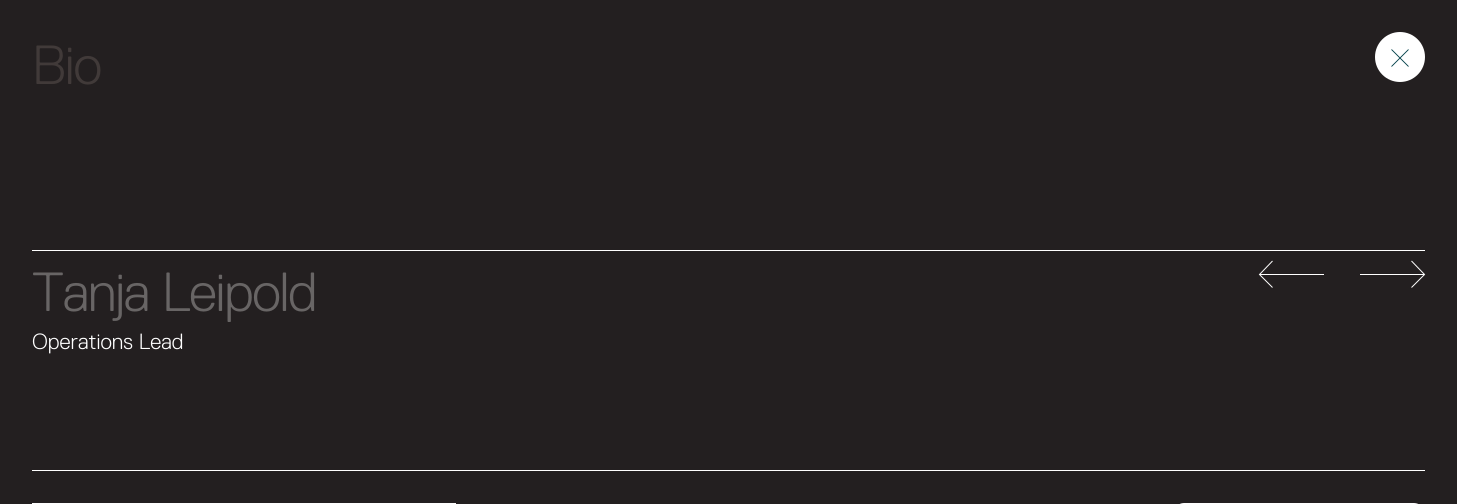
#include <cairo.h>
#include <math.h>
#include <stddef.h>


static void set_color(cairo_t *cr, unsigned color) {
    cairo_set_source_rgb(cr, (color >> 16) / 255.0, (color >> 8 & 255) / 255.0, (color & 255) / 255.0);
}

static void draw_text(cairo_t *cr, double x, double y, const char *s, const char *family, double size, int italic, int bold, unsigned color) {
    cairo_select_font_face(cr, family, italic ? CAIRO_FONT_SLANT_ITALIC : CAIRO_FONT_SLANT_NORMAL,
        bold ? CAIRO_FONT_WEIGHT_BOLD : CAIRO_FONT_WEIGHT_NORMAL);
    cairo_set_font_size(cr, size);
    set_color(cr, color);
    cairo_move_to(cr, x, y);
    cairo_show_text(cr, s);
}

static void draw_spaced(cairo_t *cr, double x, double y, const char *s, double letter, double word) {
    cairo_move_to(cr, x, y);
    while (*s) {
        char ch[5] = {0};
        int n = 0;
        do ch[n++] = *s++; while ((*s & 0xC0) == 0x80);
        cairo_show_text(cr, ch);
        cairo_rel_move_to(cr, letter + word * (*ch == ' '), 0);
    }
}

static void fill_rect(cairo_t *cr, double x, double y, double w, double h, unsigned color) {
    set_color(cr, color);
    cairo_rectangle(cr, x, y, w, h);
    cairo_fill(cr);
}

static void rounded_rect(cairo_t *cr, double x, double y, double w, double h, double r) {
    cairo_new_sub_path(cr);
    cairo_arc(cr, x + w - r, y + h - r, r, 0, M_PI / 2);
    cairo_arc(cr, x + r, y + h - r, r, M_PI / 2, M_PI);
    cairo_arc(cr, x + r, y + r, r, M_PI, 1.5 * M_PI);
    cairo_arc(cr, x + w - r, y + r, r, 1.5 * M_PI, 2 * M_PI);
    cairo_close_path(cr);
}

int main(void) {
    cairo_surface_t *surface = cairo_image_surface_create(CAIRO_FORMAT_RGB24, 1457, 504);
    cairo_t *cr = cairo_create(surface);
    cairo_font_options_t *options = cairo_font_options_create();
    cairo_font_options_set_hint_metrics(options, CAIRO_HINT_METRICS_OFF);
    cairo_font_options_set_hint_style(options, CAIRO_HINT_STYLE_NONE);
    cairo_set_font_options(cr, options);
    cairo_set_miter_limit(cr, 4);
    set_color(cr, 0x231F20);
    cairo_paint(cr);
    cairo_select_font_face(cr, "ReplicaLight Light", CAIRO_FONT_SLANT_NORMAL, CAIRO_FONT_WEIGHT_NORMAL);
    cairo_set_font_size(cr, 55);
    set_color(cr, 0x413A39);
    draw_spaced(cr, 32, 84, "Bio", -1.25, 0);
    set_color(cr, 0xFFFFFF);
    cairo_new_path(cr);
    cairo_arc(cr, 1400, 57, 25, 0, 2 * M_PI);
    cairo_fill(cr);
    cairo_new_path(cr);
    cairo_move_to(cr, 1391.5, 49.5);
    cairo_line_to(cr, 1408.5, 66.5);
    cairo_move_to(cr, 1408.5, 49.5);
    cairo_line_to(cr, 1391.5, 66.5);
    set_color(cr, 0x003E47);
    cairo_set_line_width(cr, 0.9);
    cairo_stroke(cr);
    fill_rect(cr, 32, 250, 1393, 1, 0xFFFFFF);
    set_color(cr, 0x686565);
    draw_spaced(cr, 32, 311, "Tanja Leipold", -1.25, 0);
    draw_text(cr, 32, 349, "Operations Lead", "ReplicaLight Light", 22, 0, 0, 0xFFFFFF);
    cairo_new_path(cr);
    cairo_move_to(cr, 1272.5, 287.5);
    cairo_line_to(cr, 1259.5, 274.5);
    cairo_line_to(cr, 1272.5, 261);
    cairo_set_line_width(cr, 1);
    cairo_stroke(cr);
    fill_rect(cr, 1260, 274, 64, 1, 0xFFFFFF);
    cairo_new_path(cr);
    cairo_move_to(cr, 1411.5, 261);
    cairo_line_to(cr, 1424.5, 274.5);
    cairo_line_to(cr, 1411.5, 287.5);
    cairo_stroke(cr);
    fill_rect(cr, 1360, 274, 64, 1, 0xFFFFFF);
    fill_rect(cr, 32, 470, 1393, 1, 0xFFFFFF);
    fill_rect(cr, 32, 503, 424, 1, 0xFEFEFE);
    rounded_rect(cr, 1174.5, 503.5, 249, 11, 9.5);
    set_color(cr, 0xFFFFFF);
    cairo_stroke(cr);
    cairo_surface_write_to_png(surface, "output.png");
    cairo_font_options_destroy(options);
    cairo_destroy(cr);
    cairo_surface_destroy(surface);
    return 0;
}
